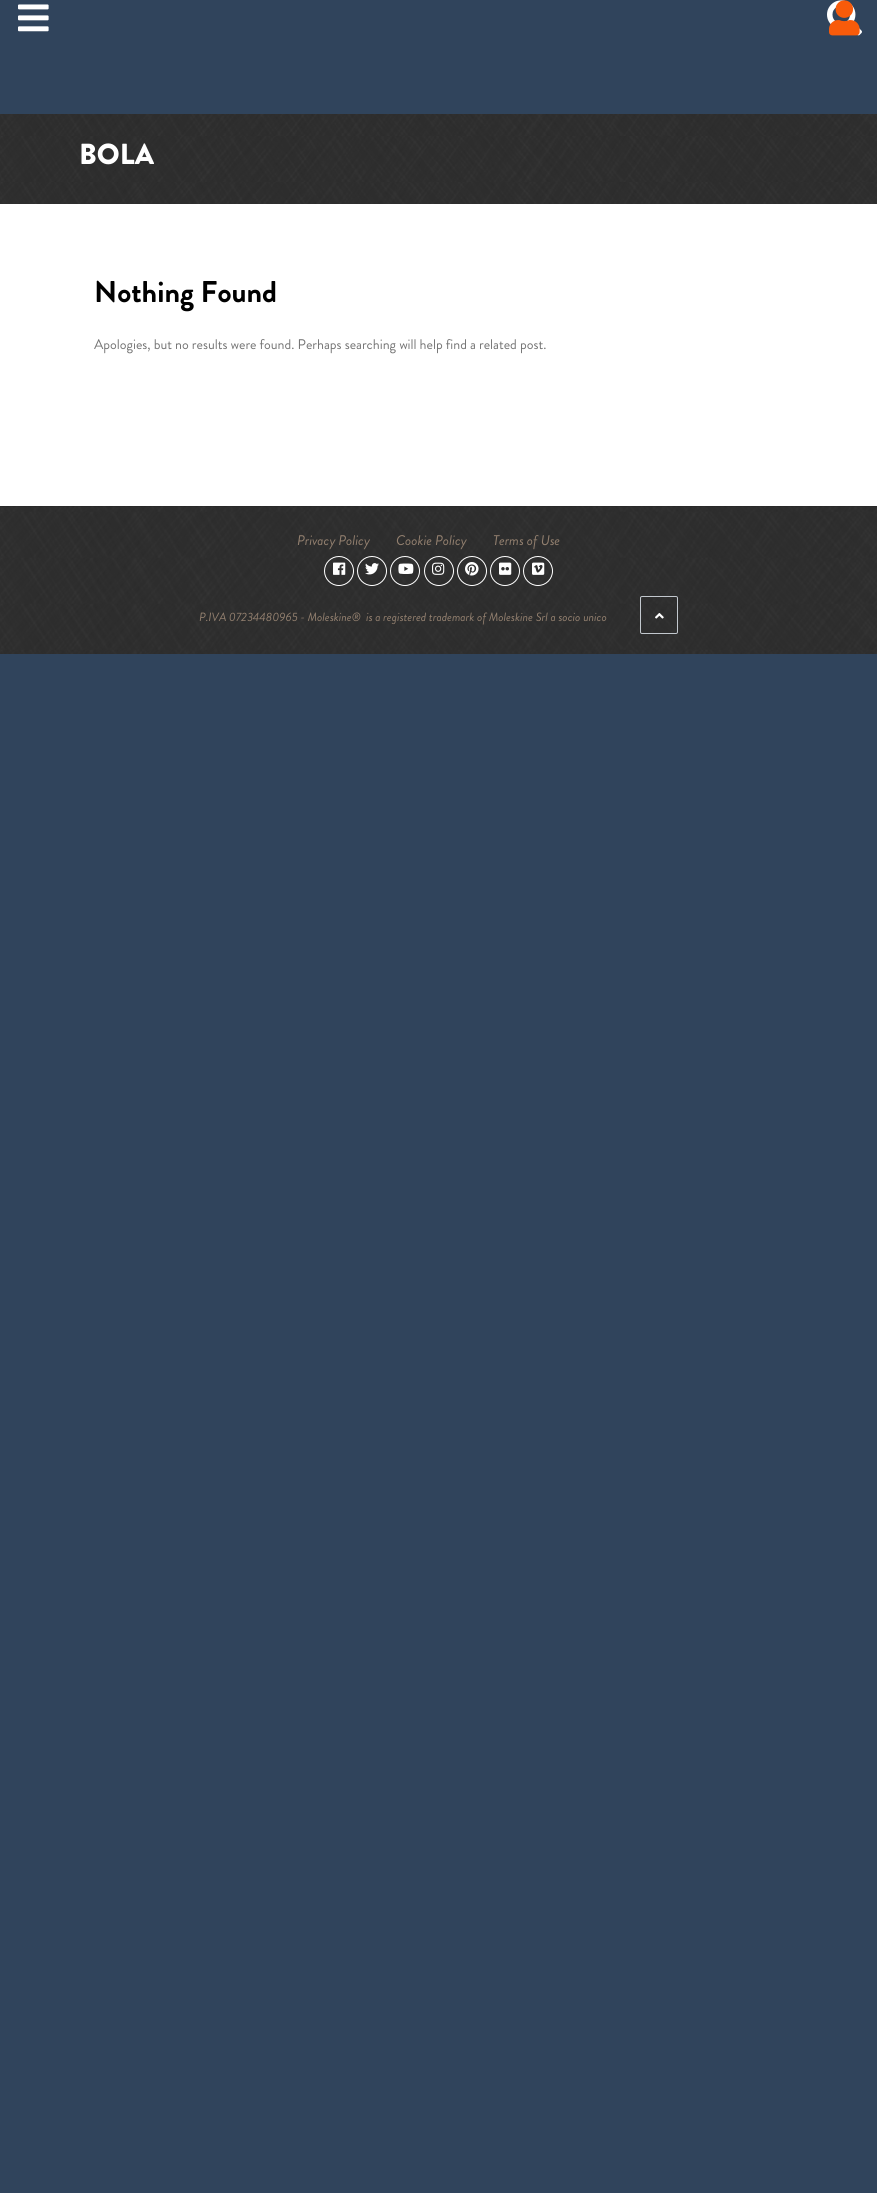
#include <cairo.h>
#include <math.h>
#include <stddef.h>


static void set_color(cairo_t *cr, unsigned color) {
    cairo_set_source_rgb(cr, (color >> 16) / 255.0, (color >> 8 & 255) / 255.0, (color & 255) / 255.0);
}

static void draw_text(cairo_t *cr, double x, double y, const char *s, const char *family, double size, int italic, int bold, unsigned color) {
    cairo_select_font_face(cr, family, italic ? CAIRO_FONT_SLANT_ITALIC : CAIRO_FONT_SLANT_NORMAL,
        bold ? CAIRO_FONT_WEIGHT_BOLD : CAIRO_FONT_WEIGHT_NORMAL);
    cairo_set_font_size(cr, size);
    set_color(cr, color);
    cairo_move_to(cr, x, y);
    cairo_show_text(cr, s);
}

static void fill_rect(cairo_t *cr, double x, double y, double w, double h, unsigned color) {
    set_color(cr, color);
    cairo_rectangle(cr, x, y, w, h);
    cairo_fill(cr);
}

static void rounded_rect(cairo_t *cr, double x, double y, double w, double h, double r) {
    cairo_new_sub_path(cr);
    cairo_arc(cr, x + w - r, y + h - r, r, 0, M_PI / 2);
    cairo_arc(cr, x + r, y + h - r, r, M_PI / 2, M_PI);
    cairo_arc(cr, x + r, y + r, r, M_PI, 1.5 * M_PI);
    cairo_arc(cr, x + w - r, y + r, r, 1.5 * M_PI, 2 * M_PI);
    cairo_close_path(cr);
}

static void draw_image(cairo_t *cr, const char *path, double x, double y, double w, double h) {
    cairo_surface_t *image = cairo_image_surface_create_from_png(path);
    cairo_save(cr);
    cairo_set_source_surface(cr, image, x, y);
    cairo_rectangle(cr, x, y, w, h);
    cairo_fill(cr);
    cairo_restore(cr);
    cairo_surface_destroy(image);
}

int main(void) {
    cairo_surface_t *surface = cairo_image_surface_create(CAIRO_FORMAT_RGB24, 877, 2193);
    cairo_t *cr = cairo_create(surface);
    cairo_font_options_t *options = cairo_font_options_create();
    cairo_font_options_set_hint_metrics(options, CAIRO_HINT_METRICS_OFF);
    cairo_font_options_set_hint_style(options, CAIRO_HINT_STYLE_NONE);
    cairo_set_font_options(cr, options);
    cairo_set_miter_limit(cr, 4);
    set_color(cr, 0x30445C);
    cairo_paint(cr);
    draw_image(cr, "assets/img1.png", 827, 0, 35, 36);
    draw_image(cr, "assets/img2.png", 18, 4, 31, 28);
    draw_image(cr, "assets/img3.png", 829, 0, 31, 36);
    fill_rect(cr, 0, 204, 877, 302, 0xFFFFFF);
    draw_image(cr, "assets/img4.png", 0, 114, 877, 90);
    draw_text(cr, 79, 164, "BOLA", "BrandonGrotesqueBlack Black", 29, 0, 0, 0xFFFFFF);
    draw_text(cr, 94, 302, "Nothing Found", "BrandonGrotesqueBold", 30, 0, 1, 0x000000);
    draw_text(cr, 94, 349, "Apologies, but no results were found. Perhaps searching will help find a related post.", "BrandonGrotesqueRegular", 14, 0, 0, 0x737373);
    draw_image(cr, "assets/img5.png", 0, 506, 877, 148);
    cairo_set_source_rgba(cr, 0, 0, 0, 0.11);
    cairo_rectangle(cr, 0, 506, 877, 1);
    cairo_fill(cr);
    draw_text(cr, 297, 545, "Privacy Policy", "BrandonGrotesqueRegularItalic", 14, 1, 0, 0x93806F);
    draw_text(cr, 396, 545, "Cookie Policy", "BrandonGrotesqueRegularItalic", 14, 1, 0, 0x93806F);
    draw_text(cr, 493, 545, "Terms of Use", "BrandonGrotesqueRegularItalic", 14, 1, 0, 0x93806F);
    cairo_new_path(cr);
    cairo_arc(cr, 339, 571, 14.5, 0, 2 * M_PI);
    set_color(cr, 0xFFFFFF);
    cairo_set_line_width(cr, 1);
    cairo_stroke(cr);
    draw_image(cr, "assets/img6.png", 333, 562, 13, 13);
    cairo_arc(cr, 372, 571, 14.5, 0, 2 * M_PI);
    cairo_stroke(cr);
    draw_image(cr, "assets/img7.png", 365, 563, 14, 12);
    cairo_arc(cr, 405, 571, 14.5, 0, 2 * M_PI);
    cairo_stroke(cr);
    draw_image(cr, "assets/img8.png", 398, 563, 16, 11);
    cairo_arc(cr, 439, 571, 14.5, 0, 2 * M_PI);
    cairo_stroke(cr);
    draw_image(cr, "assets/img9.png", 432, 562, 13, 13);
    cairo_arc(cr, 472, 571, 14.5, 0, 2 * M_PI);
    cairo_stroke(cr);
    draw_image(cr, "assets/img10.png", 465, 562, 14, 14);
    cairo_arc(cr, 505, 571, 14.5, 0, 2 * M_PI);
    cairo_stroke(cr);
    draw_image(cr, "assets/img11.png", 499, 562, 13, 13);
    cairo_arc(cr, 538, 571, 14.5, 0, 2 * M_PI);
    cairo_stroke(cr);
    draw_image(cr, "assets/img12.png", 532, 562, 13, 13);
    draw_text(cr, 199, 621, "P.IVA 07234480965 - Moleskine®  is a registered trademark of Moleskine Srl a socio unico", "BrandonGrotesqueRegularItalic", 12, 1, 0, 0x93806F);
    rounded_rect(cr, 640.5, 596.5, 37, 37, 1.5);
    set_color(cr, 0xC2C8CE);
    cairo_stroke(cr);
    draw_image(cr, "assets/img13.png", 655, 613, 9, 6);
    cairo_surface_write_to_png(surface, "output.png");
    cairo_font_options_destroy(options);
    cairo_destroy(cr);
    cairo_surface_destroy(surface);
    return 0;
}
